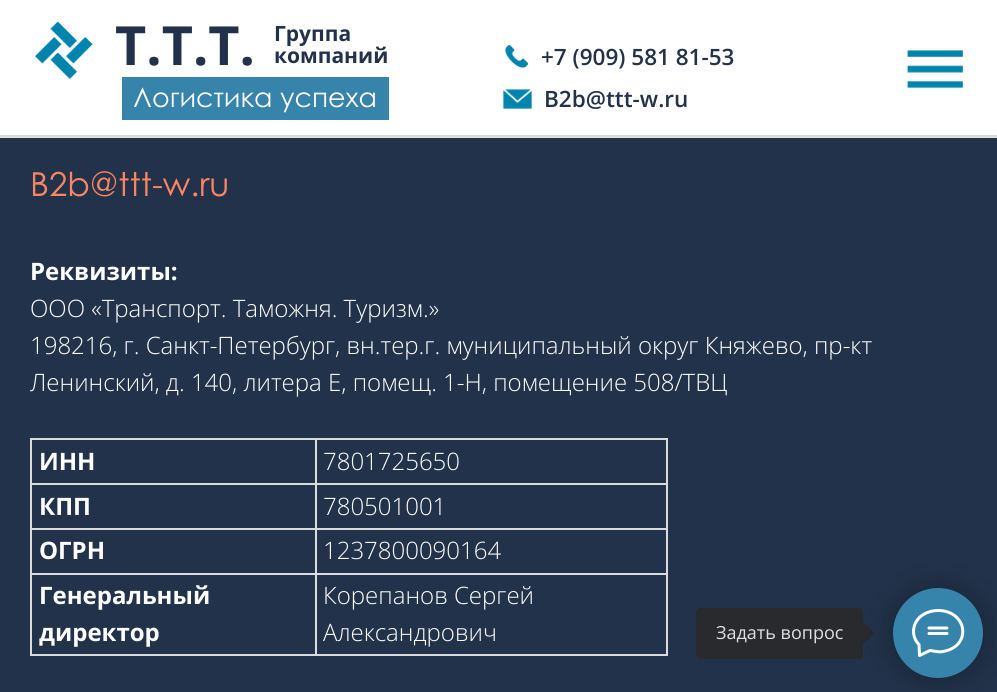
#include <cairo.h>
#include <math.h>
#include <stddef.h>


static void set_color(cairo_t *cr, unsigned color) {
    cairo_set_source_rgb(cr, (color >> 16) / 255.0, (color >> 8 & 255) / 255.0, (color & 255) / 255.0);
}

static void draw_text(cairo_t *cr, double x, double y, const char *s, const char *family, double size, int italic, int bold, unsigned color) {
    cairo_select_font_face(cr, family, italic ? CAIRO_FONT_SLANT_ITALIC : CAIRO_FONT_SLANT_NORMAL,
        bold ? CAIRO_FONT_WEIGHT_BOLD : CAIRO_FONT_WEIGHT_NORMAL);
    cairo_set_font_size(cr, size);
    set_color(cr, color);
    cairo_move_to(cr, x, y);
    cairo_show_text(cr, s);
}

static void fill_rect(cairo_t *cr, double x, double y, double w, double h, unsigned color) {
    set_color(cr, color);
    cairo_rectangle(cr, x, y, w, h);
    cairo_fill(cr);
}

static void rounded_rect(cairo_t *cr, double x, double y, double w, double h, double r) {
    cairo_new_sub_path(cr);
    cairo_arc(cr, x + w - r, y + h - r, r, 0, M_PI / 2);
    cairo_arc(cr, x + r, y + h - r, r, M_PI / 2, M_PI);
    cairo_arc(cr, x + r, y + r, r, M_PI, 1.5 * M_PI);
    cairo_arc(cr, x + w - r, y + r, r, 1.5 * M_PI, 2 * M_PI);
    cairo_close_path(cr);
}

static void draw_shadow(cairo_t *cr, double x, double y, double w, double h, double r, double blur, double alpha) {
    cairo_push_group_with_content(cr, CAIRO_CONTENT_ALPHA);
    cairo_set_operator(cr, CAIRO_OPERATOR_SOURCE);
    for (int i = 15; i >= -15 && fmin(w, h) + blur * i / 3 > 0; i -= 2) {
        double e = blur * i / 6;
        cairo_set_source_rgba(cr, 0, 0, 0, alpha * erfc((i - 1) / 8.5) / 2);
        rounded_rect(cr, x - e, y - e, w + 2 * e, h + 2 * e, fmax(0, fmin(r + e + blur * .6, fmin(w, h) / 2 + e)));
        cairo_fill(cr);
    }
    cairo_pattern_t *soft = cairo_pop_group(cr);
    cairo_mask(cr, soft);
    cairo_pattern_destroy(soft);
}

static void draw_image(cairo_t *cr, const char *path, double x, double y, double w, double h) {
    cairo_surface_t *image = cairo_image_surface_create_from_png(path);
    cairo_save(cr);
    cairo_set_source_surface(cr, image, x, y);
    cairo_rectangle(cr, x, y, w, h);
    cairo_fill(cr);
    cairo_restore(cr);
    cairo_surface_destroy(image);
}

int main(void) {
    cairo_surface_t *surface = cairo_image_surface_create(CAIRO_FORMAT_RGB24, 997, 692);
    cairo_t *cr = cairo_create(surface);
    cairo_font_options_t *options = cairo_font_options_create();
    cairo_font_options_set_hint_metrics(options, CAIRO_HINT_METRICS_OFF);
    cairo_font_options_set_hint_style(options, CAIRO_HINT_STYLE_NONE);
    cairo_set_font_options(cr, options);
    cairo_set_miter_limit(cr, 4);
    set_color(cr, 0x22324A);
    cairo_paint(cr);
    fill_rect(cr, 0, 0, 997, 138, 0xFFFFFF);
    cairo_save(cr);
    cairo_rectangle(cr, 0, 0, 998, 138);
    cairo_clip(cr);
    cairo_rectangle(cr, 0, 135, 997, 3);
    cairo_clip(cr);
    set_color(cr, 0x000000);
    draw_shadow(cr, -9, -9, 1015, 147, 0, 3, 0.2);
    cairo_restore(cr);
    draw_image(cr, "assets/img1.png", 35, 21, 58, 58);
    draw_text(cr, 115, 65, "Т.Т.Т.", "Open Sans", 54, 0, 1, 0x22324A);
    draw_text(cr, 274, 41, "Группа", "Open Sans", 21, 0, 1, 0x22324A);
    draw_text(cr, 274, 63, "компаний", "Open Sans", 21, 0, 1, 0x22324A);
    draw_image(cr, "assets/img2.png", 505, 45, 23, 23);
    draw_text(cr, 541, 65, "+7 (909) 581 81-53", "Open Sans SemiBold", 22.5, 0, 0, 0x22324A);
    draw_image(cr, "assets/img3.png", 907, 50, 56, 39);
    fill_rect(cr, 122, 77, 267, 43, 0x3683AB);
    draw_text(cr, 133, 107, "Логистика успеха", "Century Gothic", 27, 0, 0, 0xFFFFFF);
    draw_image(cr, "assets/img4.png", 502, 89, 31, 20);
    draw_text(cr, 544, 107, "B2b@ttt-w.ru", "Open Sans SemiBold", 22.5, 0, 0, 0x22324A);
    draw_text(cr, 30, 196, "B2b@ttt-w.ru", "Century Gothic", 33, 0, 0, 0xFF8562);
    draw_text(cr, 30, 280, "Реквизиты:", "Open Sans", 24, 0, 1, 0xFFFFFF);
    draw_text(cr, 30, 317, "ООО «Транспорт. Таможня. Туризм.»", "Open Sans Light", 24, 0, 0, 0xFFFFFF);
    draw_text(cr, 30, 354, "198216, г. Санкт-Петербург, вн.тер.г. муниципальный округ Княжево, пр-кт", "Open Sans Light", 24, 0, 0, 0xFFFFFF);
    draw_text(cr, 30, 391, "Ленинский, д. 140, литера Е, помещ. 1-Н, помещение 508/ТВЦ", "Open Sans Light", 24, 0, 0, 0xFFFFFF);
    fill_rect(cr, 315, 438, 353, 2, 0xDCDCDC);
    fill_rect(cr, 315, 483, 353, 2, 0xDCDCDC);
    fill_rect(cr, 315, 528, 353, 2, 0xDCDCDC);
    fill_rect(cr, 315, 573, 353, 2, 0xDCDCDC);
    fill_rect(cr, 666, 573, 2, 83, 0xDCDCDC);
    fill_rect(cr, 315, 654, 353, 2, 0xDCDCDC);
    fill_rect(cr, 315, 573, 2, 83, 0xDCDCDC);
    fill_rect(cr, 30, 573, 287, 2, 0xDCDCDC);
    fill_rect(cr, 315, 528, 2, 47, 0xDCDCDC);
    fill_rect(cr, 30, 528, 287, 2, 0xDCDCDC);
    fill_rect(cr, 315, 483, 2, 47, 0xDCDCDC);
    fill_rect(cr, 30, 483, 287, 2, 0xDCDCDC);
    fill_rect(cr, 315, 438, 2, 47, 0xDCDCDC);
    fill_rect(cr, 30, 438, 287, 2, 0xDCDCDC);
    fill_rect(cr, 30, 654, 287, 2, 0xDCDCDC);
    fill_rect(cr, 30, 573, 2, 83, 0xDCDCDC);
    fill_rect(cr, 30, 528, 2, 47, 0xDCDCDC);
    fill_rect(cr, 30, 483, 2, 47, 0xDCDCDC);
    fill_rect(cr, 30, 438, 2, 47, 0xDCDCDC);
    draw_text(cr, 39, 470, "ИНН", "Open Sans", 24, 0, 1, 0xFFFFFF);
    fill_rect(cr, 666, 528, 2, 47, 0xDCDCDC);
    fill_rect(cr, 666, 483, 2, 47, 0xDCDCDC);
    fill_rect(cr, 666, 438, 2, 47, 0xDCDCDC);
    draw_text(cr, 323, 470, "7801725650", "Open Sans Light", 24, 0, 0, 0xFFFFFF);
    draw_text(cr, 39, 515, "КПП", "Open Sans", 24, 0, 1, 0xFFFFFF);
    draw_text(cr, 323, 515, "780501001", "Open Sans Light", 24, 0, 0, 0xFFFFFF);
    draw_text(cr, 39, 559, "ОГРН", "Open Sans", 24, 0, 1, 0xFFFFFF);
    draw_text(cr, 323, 559, "1237800090164", "Open Sans Light", 24, 0, 0, 0xFFFFFF);
    draw_text(cr, 39, 604, "Генеральный", "Open Sans", 24, 0, 1, 0xFFFFFF);
    draw_text(cr, 39, 641, "директор", "Open Sans", 24, 0, 1, 0xFFFFFF);
    draw_text(cr, 323, 604, "Корепанов Сергей", "Open Sans Light", 24, 0, 0, 0xFFFFFF);
    draw_text(cr, 323, 641, "Александрович", "Open Sans Light", 24, 0, 0, 0xFFFFFF);
    set_color(cr, 0x282A2E);
    rounded_rect(cr, 696, 608, 167, 51, 5);
    cairo_fill(cr);
    draw_text(cr, 716, 639, "Задать вопрос", "Open Sans", 18, 0, 0, 0xDEE0E4);
    set_color(cr, 0x282A2E);
    cairo_new_path(cr);
    cairo_move_to(cr, 862.5, 645);
    cairo_line_to(cr, 862.5, 621);
    cairo_line_to(cr, 874.5, 633);
    cairo_close_path(cr);
    cairo_fill(cr);
    set_color(cr, 0x000000);
    draw_shadow(cr, 893, 588, 90, 90, 45, 15, 0.3);
    set_color(cr, 0x3683AB);
    cairo_arc(cr, 938, 633, 45, 0, 2 * M_PI);
    cairo_fill(cr);
    cairo_new_path(cr);
    cairo_move_to(cr, 929, 628);
    cairo_line_to(cr, 947, 628);
    cairo_move_to(cr, 929, 633.5);
    cairo_line_to(cr, 947, 633.5);
    cairo_move_to(cr, 919, 644.5);
    cairo_curve_to(cr, 911, 636.5, 912, 624, 920.5, 616.5);
    cairo_curve_to(cr, 925.5, 612.5, 932, 610.5, 938, 610.5);
    cairo_curve_to(cr, 967.5, 610.5, 972.5, 646.5, 943, 651.5);
    cairo_curve_to(cr, 938, 652.5, 935, 651, 930, 650.5);
    cairo_line_to(cr, 919.5, 655.5);
    cairo_close_path(cr);
    set_color(cr, 0xFFFFFF);
    cairo_set_line_width(cr, 3);
    cairo_set_line_cap(cr, CAIRO_LINE_CAP_ROUND);
    cairo_set_line_join(cr, CAIRO_LINE_JOIN_ROUND);
    cairo_stroke(cr);
    cairo_surface_write_to_png(surface, "output.png");
    cairo_font_options_destroy(options);
    cairo_destroy(cr);
    cairo_surface_destroy(surface);
    return 0;
}
